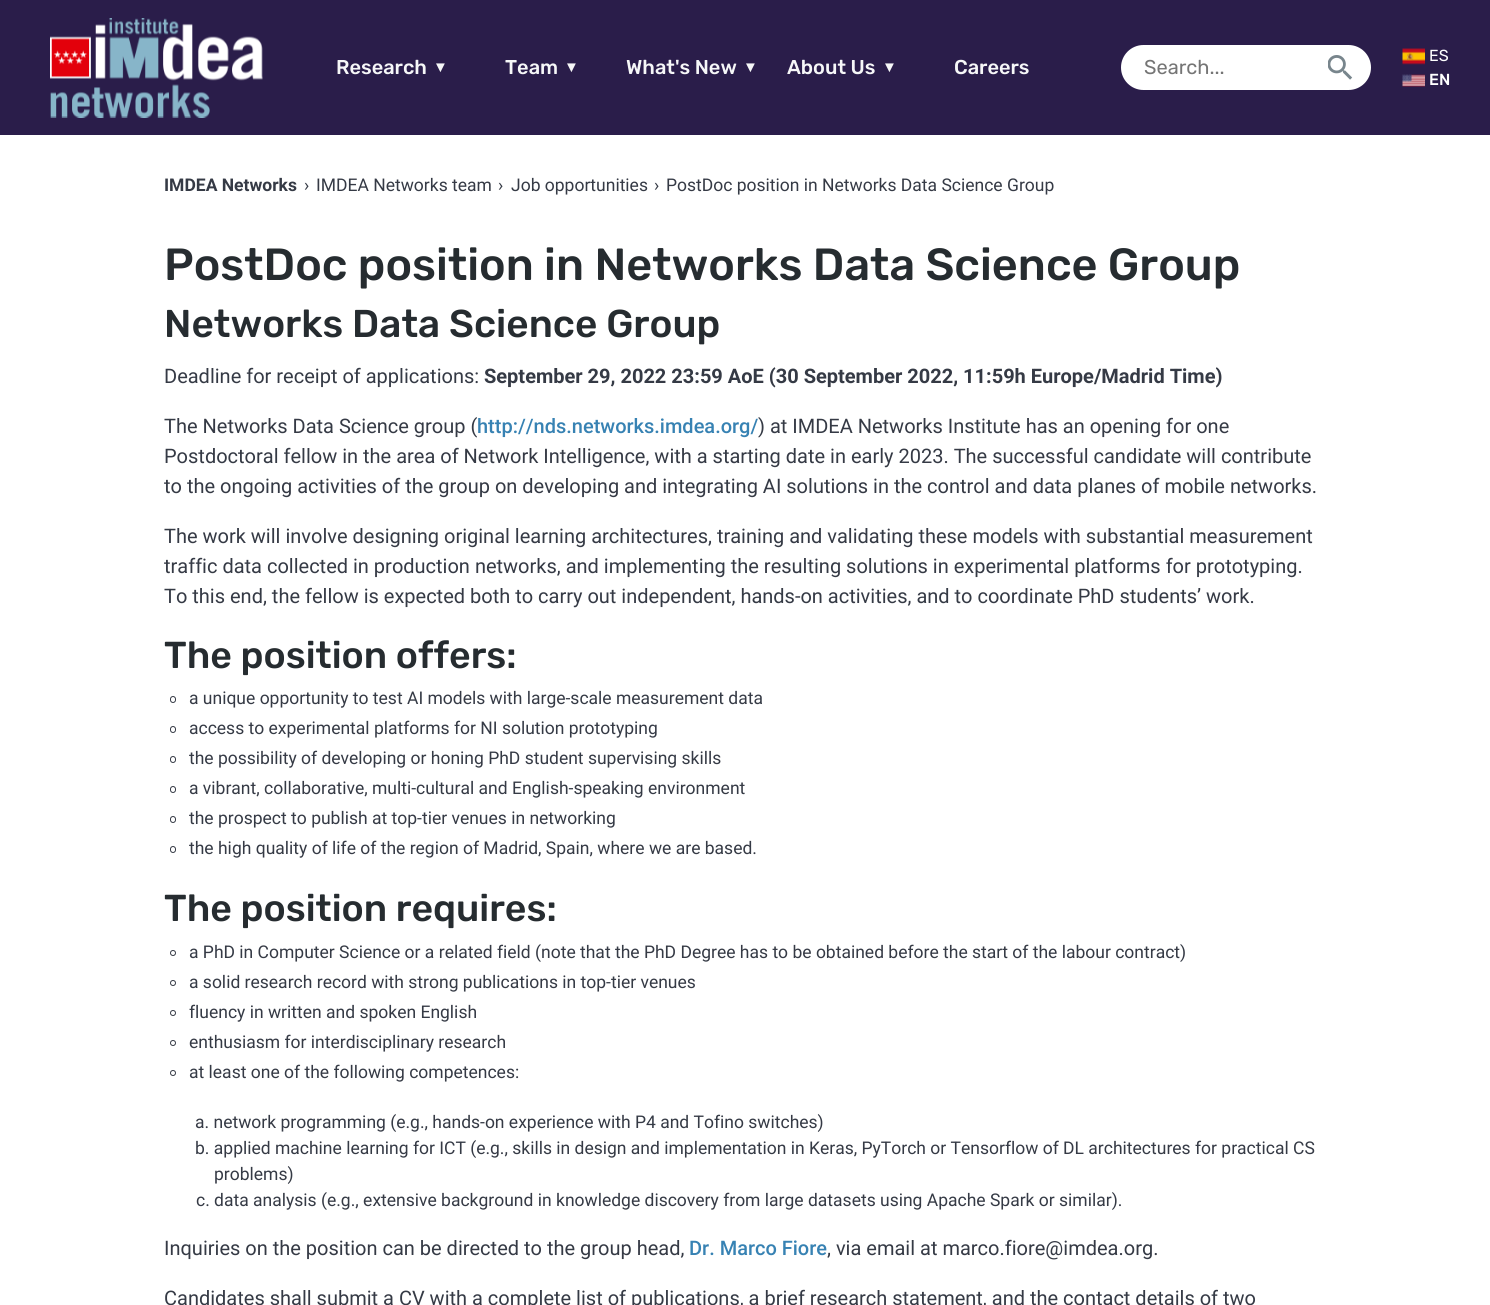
#include <cairo.h>
#include <math.h>
#include <stddef.h>


static void set_color(cairo_t *cr, unsigned color) {
    cairo_set_source_rgb(cr, (color >> 16) / 255.0, (color >> 8 & 255) / 255.0, (color & 255) / 255.0);
}

static void draw_text(cairo_t *cr, double x, double y, const char *s, const char *family, double size, int italic, int bold, unsigned color) {
    cairo_select_font_face(cr, family, italic ? CAIRO_FONT_SLANT_ITALIC : CAIRO_FONT_SLANT_NORMAL,
        bold ? CAIRO_FONT_WEIGHT_BOLD : CAIRO_FONT_WEIGHT_NORMAL);
    cairo_set_font_size(cr, size);
    set_color(cr, color);
    cairo_move_to(cr, x, y);
    cairo_show_text(cr, s);
}

static void fill_rect(cairo_t *cr, double x, double y, double w, double h, unsigned color) {
    set_color(cr, color);
    cairo_rectangle(cr, x, y, w, h);
    cairo_fill(cr);
}

static void rounded_rect(cairo_t *cr, double x, double y, double w, double h, double r) {
    cairo_new_sub_path(cr);
    cairo_arc(cr, x + w - r, y + h - r, r, 0, M_PI / 2);
    cairo_arc(cr, x + r, y + h - r, r, M_PI / 2, M_PI);
    cairo_arc(cr, x + r, y + r, r, M_PI, 1.5 * M_PI);
    cairo_arc(cr, x + w - r, y + r, r, 1.5 * M_PI, 2 * M_PI);
    cairo_close_path(cr);
}

static void draw_image(cairo_t *cr, const char *path, double x, double y, double w, double h) {
    cairo_surface_t *image = cairo_image_surface_create_from_png(path);
    cairo_save(cr);
    cairo_set_source_surface(cr, image, x, y);
    cairo_rectangle(cr, x, y, w, h);
    cairo_fill(cr);
    cairo_restore(cr);
    cairo_surface_destroy(image);
}

int main(void) {
    cairo_surface_t *surface = cairo_image_surface_create(CAIRO_FORMAT_RGB24, 1490, 1305);
    cairo_t *cr = cairo_create(surface);
    cairo_font_options_t *options = cairo_font_options_create();
    cairo_font_options_set_hint_metrics(options, CAIRO_HINT_METRICS_OFF);
    cairo_font_options_set_hint_style(options, CAIRO_HINT_STYLE_NONE);
    cairo_set_font_options(cr, options);
    cairo_set_miter_limit(cr, 4);
    set_color(cr, 0xFFFFFF);
    cairo_paint(cr);
    fill_rect(cr, 0, 0, 1490, 135, 0x2A1D4A);
    draw_image(cr, "assets/img1.png", 50, 18, 213, 100);
    draw_text(cr, 336, 74, "Research", "Rubik Medium", 20, 0, 0, 0xF6F7F8);
    draw_text(cr, 433, 72, "▼", "Liberation Serif", 15, 0, 0, 0xF6F7F8);
    draw_text(cr, 505, 74, "Team", "Rubik Medium", 20, 0, 0, 0xF6F7F8);
    draw_text(cr, 564, 72, "▼", "Liberation Serif", 15, 0, 0, 0xF6F7F8);
    draw_text(cr, 626, 74, "What's New", "Rubik Medium", 20, 0, 0, 0xF6F7F8);
    draw_text(cr, 743, 72, "▼", "Liberation Serif", 15, 0, 0, 0xF6F7F8);
    draw_text(cr, 787, 74, "About Us", "Rubik Medium", 20, 0, 0, 0xF6F7F8);
    draw_text(cr, 882, 72, "▼", "Liberation Serif", 15, 0, 0, 0xF6F7F8);
    draw_text(cr, 954, 74, "Careers", "Rubik Medium", 20, 0, 0, 0xF6F7F8);
    set_color(cr, 0xFFFFFF);
    rounded_rect(cr, 1121, 45, 250, 45, 22.5);
    cairo_fill(cr);
    draw_text(cr, 1144, 74, "Search...", "Rubik", 20, 0, 0, 0x757575);
    draw_image(cr, "assets/img2.png", 1328, 55, 25, 25);
    draw_image(cr, "assets/img3.png", 1402, 48, 23, 17);
    draw_text(cr, 1429, 61, "ES", "Rubik", 16, 0, 0, 0xFFFFFF);
    draw_image(cr, "assets/img4.png", 1402, 74, 23, 13);
    draw_text(cr, 1429, 85, "EN", "Rubik Medium", 16, 0, 0, 0xFFFFFF);
    draw_text(cr, 164, 191, "IMDEA Networks", "Roboto", 17.5, 0, 1, 0x353A45);
    draw_text(cr, 304, 191, "›", "Roboto", 17.5, 0, 0, 0x353A45);
    draw_text(cr, 316, 191, "IMDEA Networks team", "Roboto", 17.5, 0, 0, 0x353A45);
    draw_text(cr, 498, 191, "›", "Roboto", 17.5, 0, 0, 0x353A45);
    draw_text(cr, 511, 191, "Job opportunities", "Roboto", 17.5, 0, 0, 0x353A45);
    draw_text(cr, 654, 191, "›", "Roboto", 17.5, 0, 0, 0x353A45);
    draw_text(cr, 666, 191, "PostDoc position in Networks Data Science Group", "Roboto", 17.5, 0, 0, 0x353A45);
    draw_text(cr, 164, 280, "PostDoc position in Networks Data Science Group", "Rubik Medium", 45, 0, 0, 0x262C30);
    draw_text(cr, 164, 337, "Networks Data Science Group", "Rubik Medium", 38.75, 0, 0, 0x262C30);
    draw_text(cr, 164, 383, "Deadline for receipt of applications:", "Roboto", 20, 0, 0, 0x353A45);
    draw_text(cr, 484, 383, "September 29, 2022 23:59 AoE (30 September 2022, 11:59h Europe/Madrid Time)", "Roboto", 20, 0, 1, 0x353A45);
    draw_text(cr, 164, 433, "The Networks Data Science group (", "Roboto", 20, 0, 0, 0x353A45);
    draw_text(cr, 477, 433, "http://nds.networks.imdea.org/", "Roboto Medium", 20, 0, 0, 0x3782B3);
    draw_text(cr, 758, 433, ") at IMDEA Networks Institute has an opening for one", "Roboto", 20, 0, 0, 0x353A45);
    draw_text(cr, 164, 463, "Postdoctoral fellow in the area of Network Intelligence, with a starting date in early 2023. The successful candidate will contribute", "Roboto", 20, 0, 0, 0x353A45);
    draw_text(cr, 164, 493, "to the ongoing activities of the group on developing and integrating AI solutions in the control and data planes of mobile networks.", "Roboto", 20, 0, 0, 0x353A45);
    draw_text(cr, 164, 543, "The work will involve designing original learning architectures, training and validating these models with substantial measurement", "Roboto", 20, 0, 0, 0x353A45);
    draw_text(cr, 164, 573, "traffic data collected in production networks, and implementing the resulting solutions in experimental platforms for prototyping.", "Roboto", 20, 0, 0, 0x353A45);
    draw_text(cr, 164, 603, "To this end, the fellow is expected both to carry out independent, hands-on activities, and to coordinate PhD students’ work.", "Roboto", 20, 0, 0, 0x353A45);
    draw_text(cr, 164, 668, "The position offers:", "Rubik Medium", 37.5, 0, 0, 0x262C30);
    rounded_rect(cr, 170.5, 696.5, 5, 6, 2.5);
    set_color(cr, 0x353A45);
    cairo_set_line_width(cr, 1);
    cairo_stroke(cr);
    draw_text(cr, 189, 704, "a unique opportunity to test AI models with large-scale measurement data", "Roboto", 17.5, 0, 0, 0x353A45);
    rounded_rect(cr, 170.5, 726.5, 5, 6, 2.5);
    cairo_stroke(cr);
    draw_text(cr, 189, 734, "access to experimental platforms for NI solution prototyping", "Roboto", 17.5, 0, 0, 0x353A45);
    rounded_rect(cr, 170.5, 756.5, 5, 6, 2.5);
    cairo_stroke(cr);
    draw_text(cr, 189, 764, "the possibility of developing or honing PhD student supervising skills", "Roboto", 17.5, 0, 0, 0x353A45);
    rounded_rect(cr, 170.5, 786.5, 5, 6, 2.5);
    cairo_stroke(cr);
    draw_text(cr, 189, 794, "a vibrant, collaborative, multi-cultural and English-speaking environment", "Roboto", 17.5, 0, 0, 0x353A45);
    rounded_rect(cr, 170.5, 816.5, 5, 6, 2.5);
    cairo_stroke(cr);
    draw_text(cr, 189, 824, "the prospect to publish at top-tier venues in networking", "Roboto", 17.5, 0, 0, 0x353A45);
    rounded_rect(cr, 170.5, 846.5, 5, 6, 2.5);
    cairo_stroke(cr);
    draw_text(cr, 189, 854, "the high quality of life of the region of Madrid, Spain, where we are based.", "Roboto", 17.5, 0, 0, 0x353A45);
    draw_text(cr, 164, 921, "The position requires:", "Rubik Medium", 37.5, 0, 0, 0x262C30);
    cairo_new_path(cr);
    cairo_arc(cr, 173, 953, 2.5, 0, 2 * M_PI);
    set_color(cr, 0x353A45);
    cairo_stroke(cr);
    draw_text(cr, 189, 958, "a PhD in Computer Science or a related field (note that the PhD Degree has to be obtained before the start of the labour contract)", "Roboto", 17.5, 0, 0, 0x353A45);
    cairo_new_path(cr);
    cairo_arc(cr, 173, 983, 2.5, 0, 2 * M_PI);
    cairo_stroke(cr);
    draw_text(cr, 189, 988, "a solid research record with strong publications in top-tier venues", "Roboto", 17.5, 0, 0, 0x353A45);
    cairo_new_path(cr);
    cairo_arc(cr, 173, 1013, 2.5, 0, 2 * M_PI);
    cairo_stroke(cr);
    draw_text(cr, 189, 1018, "fluency in written and spoken English", "Roboto", 17.5, 0, 0, 0x353A45);
    cairo_new_path(cr);
    cairo_arc(cr, 173, 1043, 2.5, 0, 2 * M_PI);
    cairo_stroke(cr);
    draw_text(cr, 189, 1048, "enthusiasm for interdisciplinary research", "Roboto", 17.5, 0, 0, 0x353A45);
    cairo_new_path(cr);
    cairo_arc(cr, 173, 1073, 2.5, 0, 2 * M_PI);
    cairo_stroke(cr);
    draw_text(cr, 189, 1078, "at least one of the following competences:", "Roboto", 17.5, 0, 0, 0x353A45);
    draw_text(cr, 195, 1128, "a. network programming (e.g., hands-on experience with P4 and Tofino switches)", "Roboto", 17.5, 0, 0, 0x353A45);
    draw_text(cr, 195, 1154, "b. applied machine learning for ICT (e.g., skills in design and implementation in Keras, PyTorch or Tensorflow of DL architectures for practical CS", "Roboto", 17.5, 0, 0, 0x353A45);
    draw_text(cr, 214, 1180, "problems)", "Roboto", 17.5, 0, 0, 0x353A45);
    draw_text(cr, 196, 1206, "c. data analysis (e.g., extensive background in knowledge discovery from large datasets using Apache Spark or similar).", "Roboto", 17.5, 0, 0, 0x353A45);
    draw_text(cr, 164, 1255, "Inquiries on the position can be directed to the group head,", "Roboto", 20, 0, 0, 0x353A45);
    draw_text(cr, 689, 1255, "Dr. Marco Fiore", "Roboto Medium", 20, 0, 0, 0x3782B3);
    draw_text(cr, 827, 1255, ", via email at marco.fiore@imdea.org.", "Roboto", 20, 0, 0, 0x353A45);
    draw_text(cr, 164, 1305, "Candidates shall submit a CV with a complete list of publications, a brief research statement, and the contact details of two", "Roboto", 20, 0, 0, 0x353A45);
    cairo_surface_write_to_png(surface, "output.png");
    cairo_font_options_destroy(options);
    cairo_destroy(cr);
    cairo_surface_destroy(surface);
    return 0;
}
